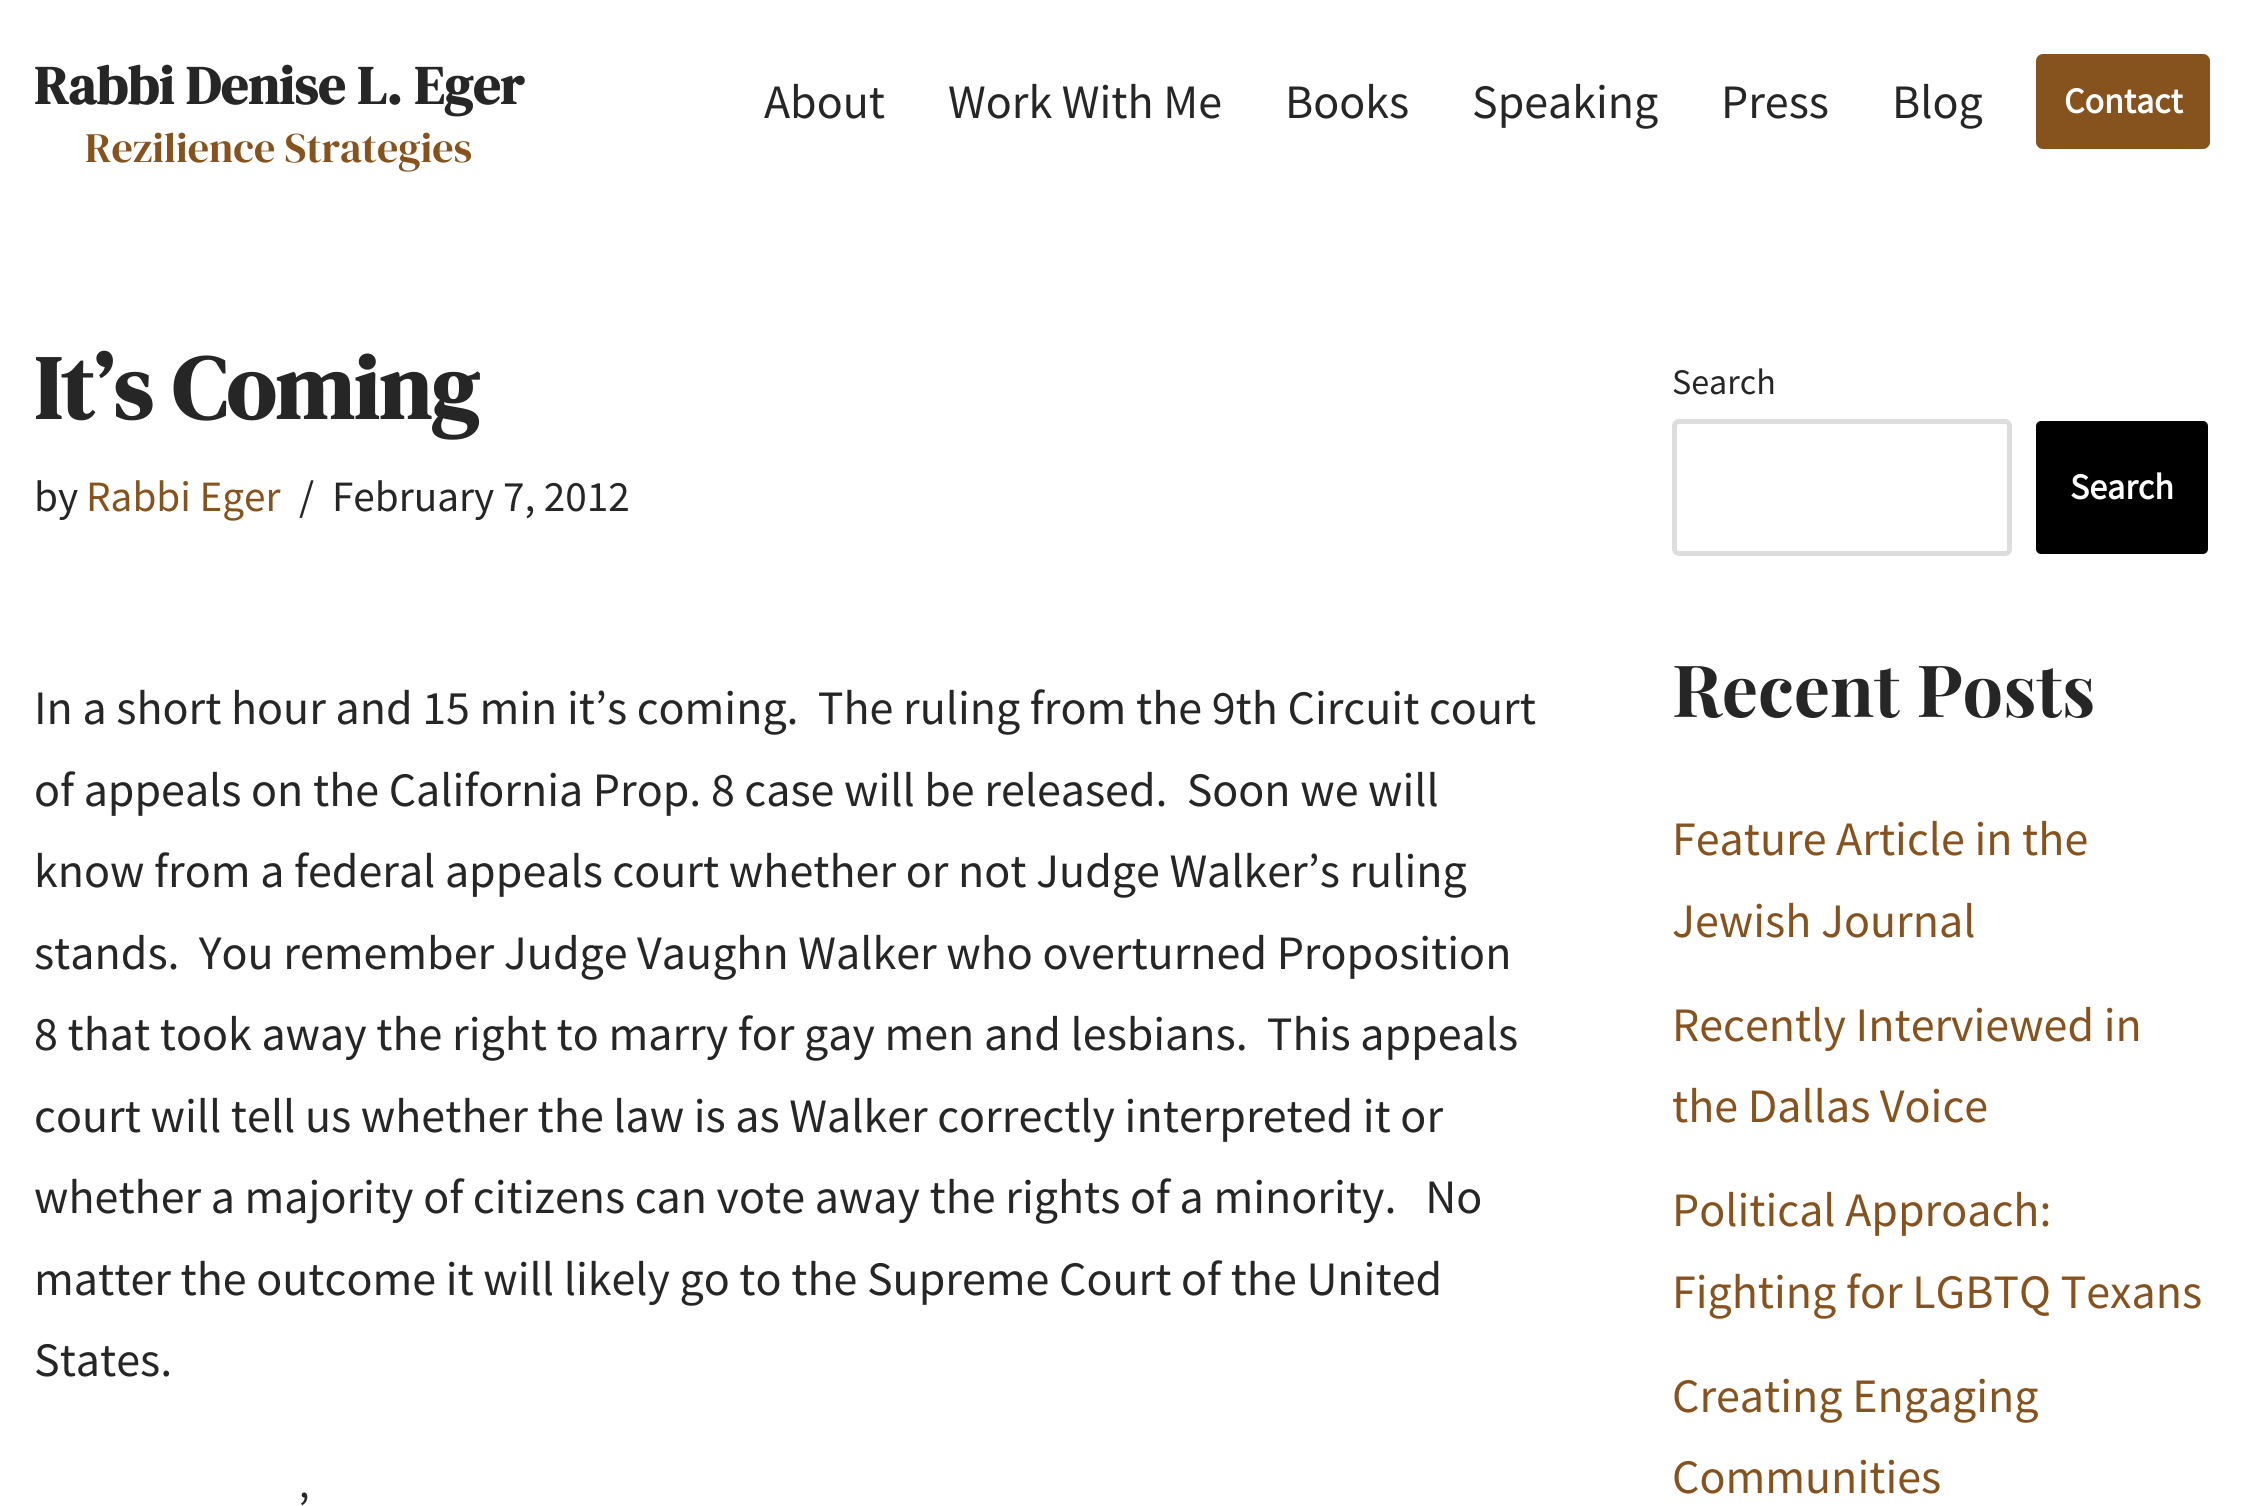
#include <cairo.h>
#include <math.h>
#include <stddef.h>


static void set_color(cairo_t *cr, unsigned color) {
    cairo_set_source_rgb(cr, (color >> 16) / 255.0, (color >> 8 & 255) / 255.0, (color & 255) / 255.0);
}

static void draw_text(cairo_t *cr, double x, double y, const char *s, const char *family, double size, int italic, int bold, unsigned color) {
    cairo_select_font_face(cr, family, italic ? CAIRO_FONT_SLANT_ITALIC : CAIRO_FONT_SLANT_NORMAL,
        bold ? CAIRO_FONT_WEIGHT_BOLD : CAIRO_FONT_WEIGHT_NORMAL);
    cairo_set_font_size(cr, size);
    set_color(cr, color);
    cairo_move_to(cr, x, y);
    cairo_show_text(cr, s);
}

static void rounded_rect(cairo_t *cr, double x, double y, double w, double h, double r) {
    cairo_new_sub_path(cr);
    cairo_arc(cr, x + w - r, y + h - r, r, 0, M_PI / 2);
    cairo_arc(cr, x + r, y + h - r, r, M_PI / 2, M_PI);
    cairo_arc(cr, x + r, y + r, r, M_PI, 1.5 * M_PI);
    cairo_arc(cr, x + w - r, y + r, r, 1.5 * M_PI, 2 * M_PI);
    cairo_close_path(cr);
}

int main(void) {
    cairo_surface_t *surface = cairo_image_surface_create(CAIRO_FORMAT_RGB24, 2242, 1506);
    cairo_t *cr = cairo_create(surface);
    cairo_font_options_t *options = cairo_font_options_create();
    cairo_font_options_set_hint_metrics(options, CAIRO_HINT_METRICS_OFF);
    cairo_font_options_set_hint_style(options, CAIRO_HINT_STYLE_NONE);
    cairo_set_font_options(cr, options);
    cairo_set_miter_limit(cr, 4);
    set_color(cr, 0xFFFFFF);
    cairo_paint(cr);
    draw_text(cr, 34, 104, "Rabbi Denise L. Eger", "DM Serif Display", 54, 0, 1, 0x272626);
    draw_text(cr, 85, 162, "Rezilience Strategies", "DM Serif Display", 42, 0, 0, 0x86531E);
    draw_text(cr, 764, 118, "About", "Source Sans Pro", 48, 0, 0, 0x272626);
    draw_text(cr, 948, 118, "Work With Me", "Source Sans Pro", 48, 0, 0, 0x272626);
    draw_text(cr, 1285, 118, "Books", "Source Sans Pro", 48, 0, 0, 0x272626);
    draw_text(cr, 1472, 118, "Speaking", "Source Sans Pro", 48, 0, 0, 0x272626);
    draw_text(cr, 1721, 118, "Press", "Source Sans Pro", 48, 0, 0, 0x272626);
    draw_text(cr, 1892, 118, "Blog", "Source Sans Pro", 48, 0, 0, 0x272626);
    set_color(cr, 0x86531E);
    rounded_rect(cr, 2036, 54, 174, 95, 7);
    cairo_fill(cr);
    draw_text(cr, 2064, 113, "Contact", "Source Sans Pro", 36, 0, 1, 0xFFFFFF);
    draw_text(cr, 34, 419, "It’s Coming", "DM Serif Display", 90, 0, 1, 0x272626);
    draw_text(cr, 34, 511, "by", "Source Sans Pro", 43.25, 0, 0, 0x272626);
    draw_text(cr, 86, 511, "Rabbi Eger", "Source Sans Pro", 43.25, 0, 0, 0x86531E);
    draw_text(cr, 299, 511, "/", "Source Sans Pro", 43.25, 0, 0, 0x272626);
    draw_text(cr, 332, 511, "February 7, 2012", "Source Sans Pro", 43.25, 0, 0, 0x272626);
    draw_text(cr, 34, 724, "In a short hour and 15 min it’s coming.  The ruling from the 9th Circuit court", "Source Sans Pro", 48, 0, 0, 0x272626);
    draw_text(cr, 34, 806, "of appeals on the California Prop. 8 case will be released.  Soon we will", "Source Sans Pro", 48, 0, 0, 0x272626);
    draw_text(cr, 34, 887, "know from a federal appeals court whether or not Judge Walker’s ruling", "Source Sans Pro", 48, 0, 0, 0x272626);
    draw_text(cr, 34, 969, "stands.  You remember Judge Vaughn Walker who overturned Proposition", "Source Sans Pro", 48, 0, 0, 0x272626);
    draw_text(cr, 34, 1050, "8 that took away the right to marry for gay men and lesbians.  This appeals", "Source Sans Pro", 48, 0, 0, 0x272626);
    draw_text(cr, 34, 1132, "court will tell us whether the law is as Walker correctly interpreted it or", "Source Sans Pro", 48, 0, 0, 0x272626);
    draw_text(cr, 34, 1213, "whether a majority of citizens can vote away the rights of a minority.   No", "Source Sans Pro", 48, 0, 0, 0x272626);
    draw_text(cr, 34, 1295, "matter the outcome it will likely go to the Supreme Court of the United", "Source Sans Pro", 48, 0, 0, 0x272626);
    draw_text(cr, 34, 1376, "States.", "Source Sans Pro", 48, 0, 0, 0x272626);
    draw_text(cr, 298, 1526, "’", "Source Sans Pro", 48, 0, 0, 0x272626);
    draw_text(cr, 1672, 394, "Search", "Source Sans Pro", 36, 0, 0, 0x272626);
    rounded_rect(cr, 1674.5, 421.5, 335, 132, 4.5);
    set_color(cr, 0xDDDDDD);
    cairo_set_line_width(cr, 5);
    cairo_stroke(cr);
    set_color(cr, 0x000000);
    rounded_rect(cr, 2035, 420, 174, 135, 6);
    cairo_fill_preserve(cr);
    set_color(cr, 0xFFFFFF);
    cairo_set_line_width(cr, 2);
    cairo_stroke(cr);
    draw_text(cr, 2070, 499, "Search", "Source Sans Pro", 36, 0, 1, 0xFFFFFF);
    draw_text(cr, 1672, 717, "Recent Posts", "Playfair Display", 72, 0, 1, 0x272626);
    draw_text(cr, 1672, 855, "Feature Article in the", "Source Sans Pro", 48, 0, 0, 0x86531E);
    draw_text(cr, 1672, 937, "Jewish Journal", "Source Sans Pro", 48, 0, 0, 0x86531E);
    draw_text(cr, 1672, 1041, "Recently Interviewed in", "Source Sans Pro", 48, 0, 0, 0x86531E);
    draw_text(cr, 1672, 1122, "the Dallas Voice", "Source Sans Pro", 48, 0, 0, 0x86531E);
    draw_text(cr, 1672, 1226, "Political Approach:", "Source Sans Pro", 48, 0, 0, 0x86531E);
    draw_text(cr, 1672, 1308, "Fighting for LGBTQ Texans", "Source Sans Pro", 48, 0, 0, 0x86531E);
    draw_text(cr, 1672, 1412, "Creating Engaging", "Source Sans Pro", 48, 0, 0, 0x86531E);
    draw_text(cr, 1672, 1493, "Communities", "Source Sans Pro", 48, 0, 0, 0x86531E);
    cairo_surface_write_to_png(surface, "output.png");
    cairo_font_options_destroy(options);
    cairo_destroy(cr);
    cairo_surface_destroy(surface);
    return 0;
}
